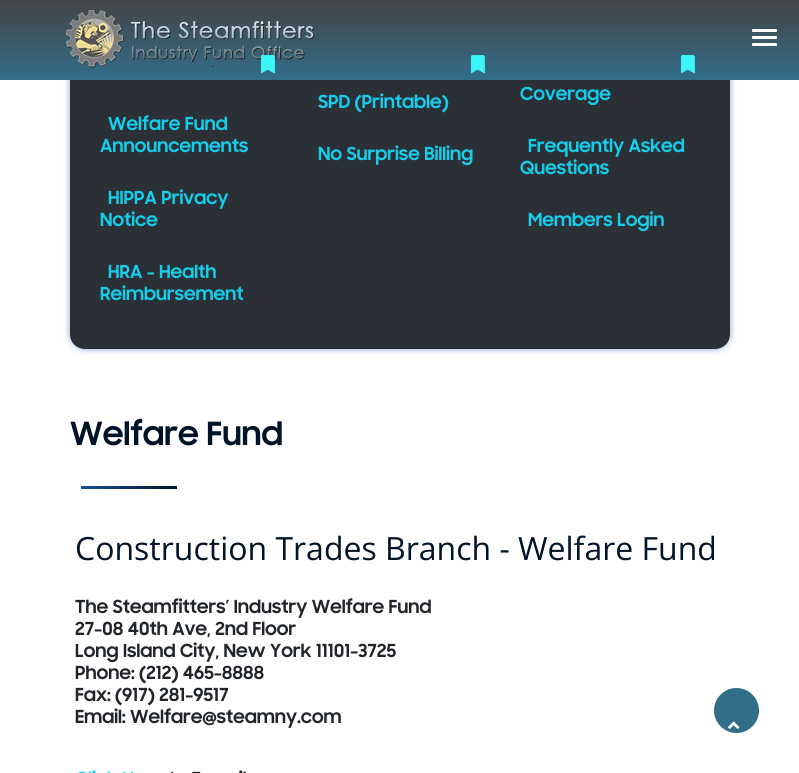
#include <cairo.h>
#include <math.h>
#include <stddef.h>


static void set_color(cairo_t *cr, unsigned color) {
    cairo_set_source_rgb(cr, (color >> 16) / 255.0, (color >> 8 & 255) / 255.0, (color & 255) / 255.0);
}

static void draw_text(cairo_t *cr, double x, double y, const char *s, const char *family, double size, int italic, int bold, unsigned color) {
    cairo_select_font_face(cr, family, italic ? CAIRO_FONT_SLANT_ITALIC : CAIRO_FONT_SLANT_NORMAL,
        bold ? CAIRO_FONT_WEIGHT_BOLD : CAIRO_FONT_WEIGHT_NORMAL);
    cairo_set_font_size(cr, size);
    set_color(cr, color);
    cairo_move_to(cr, x, y);
    cairo_show_text(cr, s);
}

static void rounded_rect(cairo_t *cr, double x, double y, double w, double h, double r) {
    cairo_new_sub_path(cr);
    cairo_arc(cr, x + w - r, y + h - r, r, 0, M_PI / 2);
    cairo_arc(cr, x + r, y + h - r, r, M_PI / 2, M_PI);
    cairo_arc(cr, x + r, y + r, r, M_PI, 1.5 * M_PI);
    cairo_arc(cr, x + w - r, y + r, r, 1.5 * M_PI, 2 * M_PI);
    cairo_close_path(cr);
}

static void draw_shadow(cairo_t *cr, double x, double y, double w, double h, double r, double blur, double alpha) {
    cairo_push_group_with_content(cr, CAIRO_CONTENT_ALPHA);
    cairo_set_operator(cr, CAIRO_OPERATOR_SOURCE);
    for (int i = 15; i >= -15 && fmin(w, h) + blur * i / 3 > 0; i -= 2) {
        double e = blur * i / 6;
        cairo_set_source_rgba(cr, 0, 0, 0, alpha * erfc((i - 1) / 8.5) / 2);
        rounded_rect(cr, x - e, y - e, w + 2 * e, h + 2 * e, fmax(0, fmin(r + e + blur * .6, fmin(w, h) / 2 + e)));
        cairo_fill(cr);
    }
    cairo_pattern_t *soft = cairo_pop_group(cr);
    cairo_mask(cr, soft);
    cairo_pattern_destroy(soft);
}

static void draw_image(cairo_t *cr, const char *path, double x, double y, double w, double h) {
    cairo_surface_t *image = cairo_image_surface_create_from_png(path);
    cairo_save(cr);
    cairo_set_source_surface(cr, image, x, y);
    cairo_rectangle(cr, x, y, w, h);
    cairo_fill(cr);
    cairo_restore(cr);
    cairo_surface_destroy(image);
}

int main(void) {
    cairo_surface_t *surface = cairo_image_surface_create(CAIRO_FORMAT_RGB24, 799, 773);
    cairo_t *cr = cairo_create(surface);
    cairo_font_options_t *options = cairo_font_options_create();
    cairo_font_options_set_hint_metrics(options, CAIRO_HINT_METRICS_OFF);
    cairo_font_options_set_hint_style(options, CAIRO_HINT_STYLE_NONE);
    cairo_set_font_options(cr, options);
    cairo_set_miter_limit(cr, 4);
    cairo_pattern_t *gradient;
    set_color(cr, 0xFFFFFF);
    cairo_paint(cr);
    set_color(cr, 0x778FCC);
    draw_shadow(cr, 69, -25, 662, 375, 16, 3, 0.66);
    set_color(cr, 0x2B3036);
    cairo_new_path(cr);
    cairo_move_to(cr, 70, -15);
    cairo_line_to(cr, 730, -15);
    cairo_line_to(cr, 730, 334);
    cairo_curve_to(cr, 730, 342.5, 723.5, 349, 715, 349);
    cairo_line_to(cr, 85, 349);
    cairo_curve_to(cr, 76.5, 349, 70, 342.5, 70, 334);
    cairo_close_path(cr);
    cairo_fill(cr);
    gradient = cairo_pattern_create_linear(400, 80, 400, 0);
    cairo_pattern_add_color_stop_rgba(gradient, 0, 0.196, 0.431, 0.541, 1);
    cairo_pattern_add_color_stop_rgba(gradient, 1, 0.267, 0.267, 0.267, 1);
    cairo_set_source(cr, gradient);
    cairo_pattern_destroy(gradient);
    cairo_rectangle(cr, 0, 0, 799, 80);
    cairo_fill(cr);
    draw_image(cr, "assets/img1.png", 66, 10, 248, 58);
    set_color(cr, 0xFFFFFF);
    rounded_rect(cr, 752, 29, 25, 3, 1);
    cairo_fill(cr);
    rounded_rect(cr, 752, 36, 25, 3, 1);
    cairo_fill(cr);
    rounded_rect(cr, 752, 43, 25, 3, 1);
    cairo_fill(cr);
    draw_image(cr, "assets/img11.png", 261, 55, 14, 19);
    draw_image(cr, "assets/img2.png", 261, 55, 14, 19);
    draw_image(cr, "assets/img3.png", 108, 115, 120, 16);
    draw_image(cr, "assets/img4.png", 100, 138, 148, 15);
    draw_image(cr, "assets/img5.png", 261, 55, 14, 19);
    draw_image(cr, "assets/img6.png", 108, 189, 121, 20);
    draw_image(cr, "assets/img7.png", 100, 211, 58, 16);
    draw_image(cr, "assets/img8.png", 261, 55, 14, 19);
    draw_image(cr, "assets/img9.png", 108, 264, 108, 15);
    draw_image(cr, "assets/img10.png", 100, 285, 144, 16);
    draw_image(cr, "assets/img16.png", 471, 55, 14, 19);
    draw_image(cr, "assets/img12.png", 471, 55, 14, 19);
    draw_image(cr, "assets/img13.png", 318, 93, 131, 20);
    draw_image(cr, "assets/img14.png", 471, 55, 14, 19);
    draw_image(cr, "assets/img15.png", 318, 145, 155, 21);
    draw_image(cr, "assets/img16.png", 681, 55, 14, 19);
    draw_image(cr, "assets/img17.png", 520, 86, 91, 20);
    draw_image(cr, "assets/img12.png", 681, 55, 14, 19);
    draw_image(cr, "assets/img18.png", 528, 138, 157, 19);
    draw_image(cr, "assets/img19.png", 520, 159, 89, 16);
    draw_image(cr, "assets/img14.png", 681, 55, 14, 19);
    draw_image(cr, "assets/img20.png", 528, 211, 136, 21);
    draw_image(cr, "assets/img21.png", 70, 418, 212, 28);
    gradient = cairo_pattern_create_linear(81, 488, 177, 488);
    cairo_pattern_add_color_stop_rgba(gradient, 0, 0.09, 0.318, 0.584, 1);
    cairo_pattern_add_color_stop_rgba(gradient, 1, 0.004, 0.075, 0.153, 1);
    cairo_set_source(cr, gradient);
    cairo_pattern_destroy(gradient);
    cairo_rectangle(cr, 81, 486, 96, 3);
    cairo_fill(cr);
    draw_text(cr, 75, 560, "Construction Trades Branch - Welfare Fund", "Open Sans", 32, 0, 0, 0x011327);
    draw_image(cr, "assets/img22.png", 75, 598, 356, 20);
    draw_image(cr, "assets/img23.png", 75, 621, 221, 17);
    draw_image(cr, "assets/img24.png", 75, 642, 321, 21);
    draw_image(cr, "assets/img25.png", 75, 665, 189, 19);
    draw_image(cr, "assets/img26.png", 75, 687, 153, 19);
    draw_image(cr, "assets/img27.png", 75, 708, 266, 20);
    draw_image(cr, "assets/img28.png", 78, 770, 55, 3);
    draw_image(cr, "assets/img29.png", 170, 770, 76, 3);
    set_color(cr, 0x326E8A);
    cairo_arc(cr, 736.5, 710.5, 22.5, 0, 2 * M_PI);
    cairo_fill(cr);
    draw_image(cr, "assets/img30.png", 728, 721, 12, 8);
    cairo_surface_write_to_png(surface, "output.png");
    cairo_font_options_destroy(options);
    cairo_destroy(cr);
    cairo_surface_destroy(surface);
    return 0;
}
